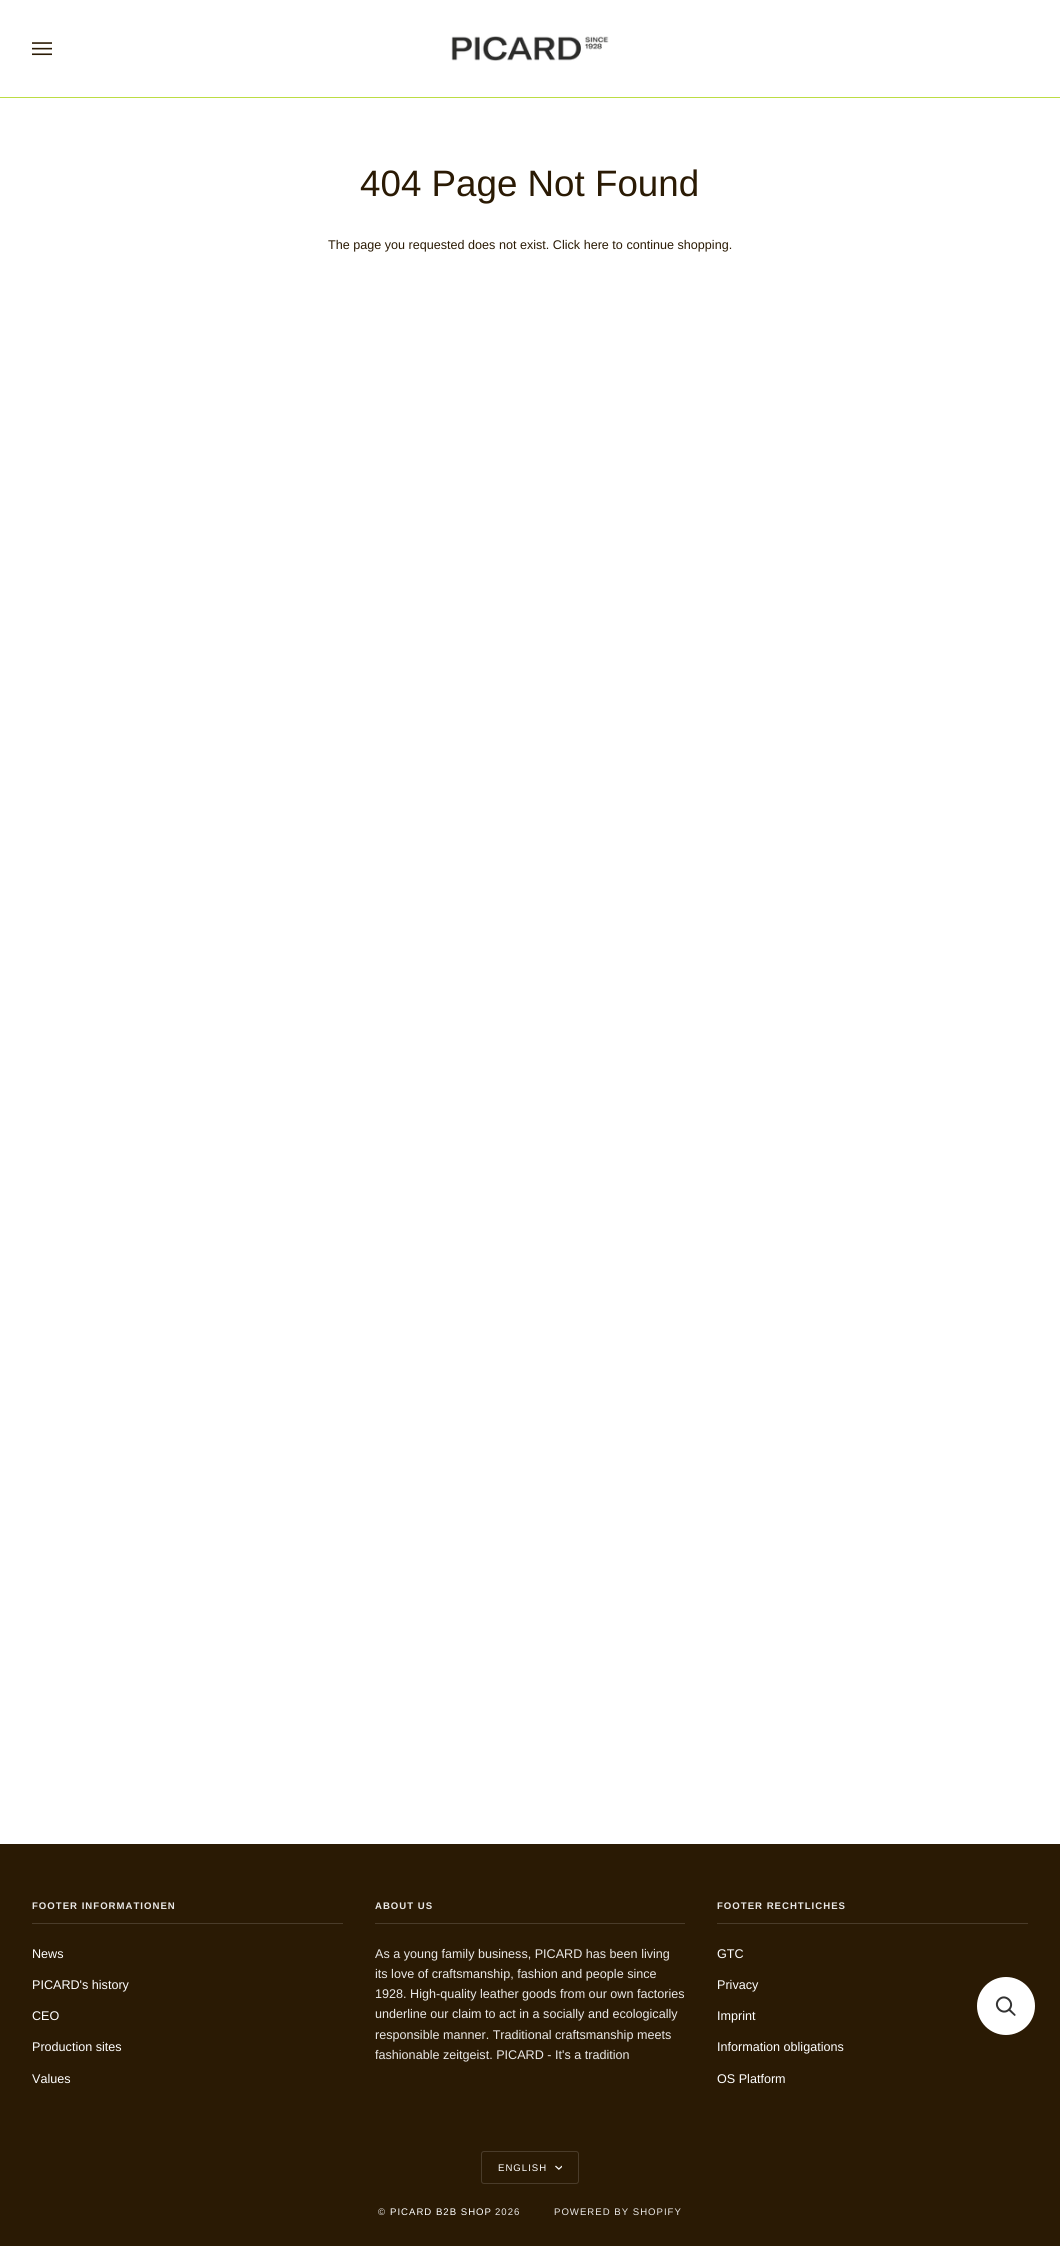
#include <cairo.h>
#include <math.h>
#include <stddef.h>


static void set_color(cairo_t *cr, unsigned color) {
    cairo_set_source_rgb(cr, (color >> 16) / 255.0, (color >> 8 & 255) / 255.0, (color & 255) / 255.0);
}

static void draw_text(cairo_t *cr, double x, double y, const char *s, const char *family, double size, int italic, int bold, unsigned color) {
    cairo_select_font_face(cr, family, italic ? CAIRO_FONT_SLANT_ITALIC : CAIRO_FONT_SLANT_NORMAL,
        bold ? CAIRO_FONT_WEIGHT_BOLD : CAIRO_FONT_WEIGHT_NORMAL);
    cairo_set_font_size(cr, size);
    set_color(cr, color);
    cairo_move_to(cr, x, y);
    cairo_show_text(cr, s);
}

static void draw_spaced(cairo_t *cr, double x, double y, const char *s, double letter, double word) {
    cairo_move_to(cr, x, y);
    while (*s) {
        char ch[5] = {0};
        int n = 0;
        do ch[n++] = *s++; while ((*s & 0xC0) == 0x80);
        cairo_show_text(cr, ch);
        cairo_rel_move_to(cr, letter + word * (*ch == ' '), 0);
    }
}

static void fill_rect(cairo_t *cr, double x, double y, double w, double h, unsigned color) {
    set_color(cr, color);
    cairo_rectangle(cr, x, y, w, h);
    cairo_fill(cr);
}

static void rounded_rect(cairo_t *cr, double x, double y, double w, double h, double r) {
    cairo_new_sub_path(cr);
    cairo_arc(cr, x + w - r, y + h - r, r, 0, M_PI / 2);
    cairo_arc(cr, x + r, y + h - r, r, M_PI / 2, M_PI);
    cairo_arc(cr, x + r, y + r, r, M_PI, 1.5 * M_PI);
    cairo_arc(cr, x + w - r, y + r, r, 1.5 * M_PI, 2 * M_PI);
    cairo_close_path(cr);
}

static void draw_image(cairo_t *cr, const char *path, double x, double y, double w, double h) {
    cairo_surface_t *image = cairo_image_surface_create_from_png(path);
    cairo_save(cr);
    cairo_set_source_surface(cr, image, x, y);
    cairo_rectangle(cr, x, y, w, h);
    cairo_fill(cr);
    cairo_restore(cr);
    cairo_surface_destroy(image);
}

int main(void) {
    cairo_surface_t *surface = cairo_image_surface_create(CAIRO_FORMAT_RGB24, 1060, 2247);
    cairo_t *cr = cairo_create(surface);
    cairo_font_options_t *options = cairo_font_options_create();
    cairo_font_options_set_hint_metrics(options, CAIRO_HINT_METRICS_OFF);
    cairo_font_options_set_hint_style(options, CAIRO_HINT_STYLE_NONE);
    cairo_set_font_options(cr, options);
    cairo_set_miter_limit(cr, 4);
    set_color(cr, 0xFFFFFF);
    cairo_paint(cr);
    fill_rect(cr, 0, 97, 1060, 1, 0xBCDD44);
    draw_image(cr, "assets/img1.png", 32, 42, 20, 14);
    draw_image(cr, "assets/img2.png", 451, 36, 158, 25);
    draw_text(cr, 360, 196, "404 Page Not Found", "Liberation Sans", 36.75, 0, 0, 0x2A1A04);
    draw_text(cr, 328, 249, "The page you requested does not exist. Click here to continue shopping.", "Liberation Sans", 12.6, 0, 0, 0x2A1A04);
    fill_rect(cr, 0, 1844, 1060, 402, 0x2A1A04);
    fill_rect(cr, 32, 1923, 311, 1, 0x4A3C2A);
    cairo_select_font_face(cr, "Liberation Sans", CAIRO_FONT_SLANT_NORMAL, CAIRO_FONT_WEIGHT_BOLD);
    cairo_set_font_size(cr, 9.6);
    set_color(cr, 0xEAE8E6);
    draw_spaced(cr, 32, 1909, "FOOTER INFORMATIONEN", 1, 0);
    draw_text(cr, 32, 1958, "News", "Liberation Sans", 12.6, 0, 0, 0xFFFFFF);
    draw_text(cr, 32, 1989, "PICARD's history", "Liberation Sans", 12.6, 0, 0, 0xFFFFFF);
    draw_text(cr, 32, 2020, "CEO", "Liberation Sans", 12.6, 0, 0, 0xFFFFFF);
    draw_text(cr, 32, 2051, "Production sites", "Liberation Sans", 12.6, 0, 0, 0xFFFFFF);
    draw_text(cr, 32, 2083, "Values", "Liberation Sans", 12.6, 0, 0, 0xFFFFFF);
    fill_rect(cr, 375, 1923, 310, 1, 0x4A3C2A);
    cairo_select_font_face(cr, "Liberation Sans", CAIRO_FONT_SLANT_NORMAL, CAIRO_FONT_WEIGHT_BOLD);
    cairo_set_font_size(cr, 9.6);
    set_color(cr, 0xEAE8E6);
    draw_spaced(cr, 375, 1909, "ABOUT US", 1, 0);
    draw_text(cr, 375, 1958, "As a young family business, PICARD has been living", "Liberation Sans", 12.6, 0, 0, 0xEAE8E6);
    draw_text(cr, 375, 1978, "its love of craftsmanship, fashion and people since", "Liberation Sans", 12.6, 0, 0, 0xEAE8E6);
    draw_text(cr, 375, 1998, "1928. High-quality leather goods from our own factories", "Liberation Sans", 12.6, 0, 0, 0xEAE8E6);
    draw_text(cr, 375, 2018, "underline our claim to act in a socially and ecologically", "Liberation Sans", 12.6, 0, 0, 0xEAE8E6);
    draw_text(cr, 375, 2039, "responsible manner. Traditional craftsmanship meets", "Liberation Sans", 12.6, 0, 0, 0xEAE8E6);
    draw_text(cr, 375, 2059, "fashionable zeitgeist. PICARD - It's a tradition", "Liberation Sans", 12.6, 0, 0, 0xEAE8E6);
    fill_rect(cr, 717, 1923, 311, 1, 0x4A3C2A);
    cairo_select_font_face(cr, "Liberation Sans", CAIRO_FONT_SLANT_NORMAL, CAIRO_FONT_WEIGHT_BOLD);
    cairo_set_font_size(cr, 9.6);
    set_color(cr, 0xEAE8E6);
    draw_spaced(cr, 717, 1909, "FOOTER RECHTLICHES", 1, 0);
    draw_text(cr, 717, 1958, "GTC", "Liberation Sans", 12.6, 0, 0, 0xFFFFFF);
    draw_text(cr, 717, 1989, "Privacy", "Liberation Sans", 12.6, 0, 0, 0xFFFFFF);
    draw_text(cr, 717, 2020, "Imprint", "Liberation Sans", 12.6, 0, 0, 0xFFFFFF);
    draw_text(cr, 717, 2051, "Information obligations", "Liberation Sans", 12.6, 0, 0, 0xFFFFFF);
    draw_text(cr, 717, 2083, "OS Platform", "Liberation Sans", 12.6, 0, 0, 0xFFFFFF);
    rounded_rect(cr, 481.5, 2151.5, 97, 32, 2.5);
    set_color(cr, 0x4A3C2A);
    cairo_set_line_width(cr, 1);
    cairo_stroke(cr);
    cairo_set_font_size(cr, 9.6);
    set_color(cr, 0xFFFFFF);
    draw_spaced(cr, 498, 2171, "ENGLISH", 1, 0);
    draw_image(cr, "assets/img3.png", 555, 2165, 7, 5);
    set_color(cr, 0xEAE8E6);
    draw_spaced(cr, 378, 2215, "©", 1, 0);
    set_color(cr, 0xFFFFFF);
    draw_spaced(cr, 390, 2215, "PICARD B2B SHOP", 1, 0);
    set_color(cr, 0xEAE8E6);
    draw_spaced(cr, 495, 2215, "2026", 1, 0);
    draw_spaced(cr, 554, 2215, "POWERED BY SHOPIFY", 1, 0);
    set_color(cr, 0xFFFFFF);
    cairo_new_path(cr);
    cairo_arc(cr, 1006, 2006, 29, 0, 2 * M_PI);
    cairo_fill(cr);
    cairo_new_path(cr);
    cairo_move_to(cr, 999, 1999.5);
    cairo_curve_to(cr, 1005.5, 1993, 1015.5, 2003, 1009, 2009.5);
    cairo_curve_to(cr, 1002.5, 2016, 992.5, 2006, 999, 1999.5);
    cairo_close_path(cr);
    set_color(cr, 0x333333);
    cairo_set_line_width(cr, 2);
    cairo_stroke(cr);
    cairo_new_path(cr);
    cairo_move_to(cr, 1008, 2010);
    cairo_line_to(cr, 1009.5, 2008.5);
    cairo_line_to(cr, 1015.5, 2014.5);
    cairo_curve_to(cr, 1016, 2015.5, 1014.5, 2016.5, 1014, 2015.5);
    cairo_close_path(cr);
    cairo_fill(cr);
    cairo_surface_write_to_png(surface, "output.png");
    cairo_font_options_destroy(options);
    cairo_destroy(cr);
    cairo_surface_destroy(surface);
    return 0;
}
